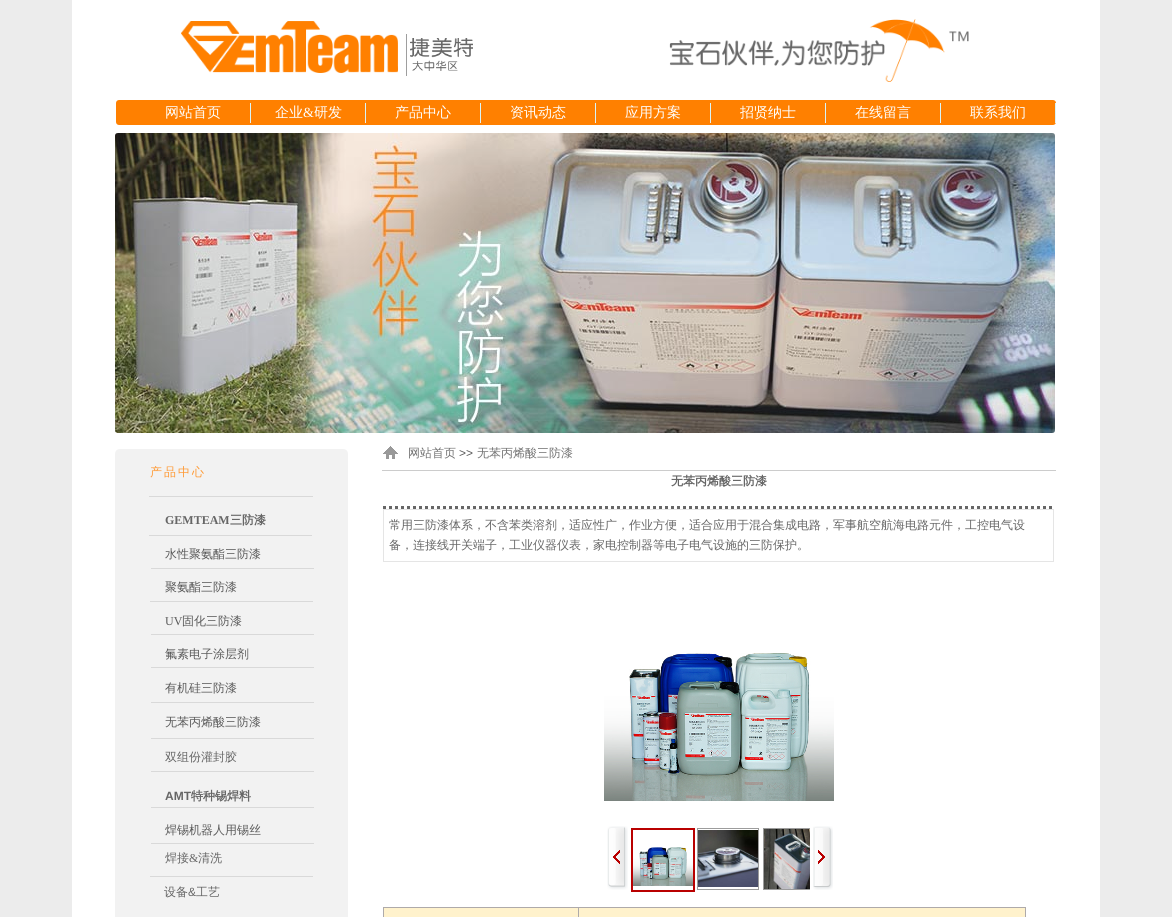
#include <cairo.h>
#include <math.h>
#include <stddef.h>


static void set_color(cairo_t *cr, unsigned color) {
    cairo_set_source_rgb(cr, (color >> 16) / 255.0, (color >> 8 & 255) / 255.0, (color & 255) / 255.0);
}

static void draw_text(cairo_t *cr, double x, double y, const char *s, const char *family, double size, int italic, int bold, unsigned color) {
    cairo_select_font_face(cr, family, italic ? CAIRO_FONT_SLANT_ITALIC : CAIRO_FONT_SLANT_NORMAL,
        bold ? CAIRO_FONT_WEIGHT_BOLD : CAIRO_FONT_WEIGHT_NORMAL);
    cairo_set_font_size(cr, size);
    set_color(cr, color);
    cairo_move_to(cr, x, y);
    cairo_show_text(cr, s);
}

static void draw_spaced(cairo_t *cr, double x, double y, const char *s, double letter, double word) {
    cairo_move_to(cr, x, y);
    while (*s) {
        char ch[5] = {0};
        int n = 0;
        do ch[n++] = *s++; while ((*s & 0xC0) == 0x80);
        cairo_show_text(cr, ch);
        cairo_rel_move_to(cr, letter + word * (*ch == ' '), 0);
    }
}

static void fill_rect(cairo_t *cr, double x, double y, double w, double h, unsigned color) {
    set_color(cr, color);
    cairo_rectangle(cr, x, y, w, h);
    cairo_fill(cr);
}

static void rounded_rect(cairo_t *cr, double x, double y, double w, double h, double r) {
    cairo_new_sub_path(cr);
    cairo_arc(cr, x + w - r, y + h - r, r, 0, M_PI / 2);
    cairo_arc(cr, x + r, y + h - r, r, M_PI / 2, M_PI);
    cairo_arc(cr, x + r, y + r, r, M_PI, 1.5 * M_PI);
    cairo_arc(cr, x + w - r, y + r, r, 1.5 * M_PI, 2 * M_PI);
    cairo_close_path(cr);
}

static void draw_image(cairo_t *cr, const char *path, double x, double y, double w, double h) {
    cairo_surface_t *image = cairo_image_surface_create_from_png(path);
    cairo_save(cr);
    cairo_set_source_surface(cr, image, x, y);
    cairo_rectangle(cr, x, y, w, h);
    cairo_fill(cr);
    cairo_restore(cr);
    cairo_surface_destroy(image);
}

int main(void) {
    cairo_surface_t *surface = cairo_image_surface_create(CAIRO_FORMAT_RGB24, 1172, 917);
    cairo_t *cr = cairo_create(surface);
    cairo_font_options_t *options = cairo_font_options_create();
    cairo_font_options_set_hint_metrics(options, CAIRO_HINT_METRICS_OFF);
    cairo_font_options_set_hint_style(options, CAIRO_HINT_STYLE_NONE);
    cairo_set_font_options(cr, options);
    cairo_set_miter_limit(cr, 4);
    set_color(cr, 0xECECEC);
    cairo_paint(cr);
    fill_rect(cr, 72, 0, 1028, 917, 0xFFFFFF);
    draw_image(cr, "assets/img1.png", 181, 21, 217, 52);
    fill_rect(cr, 406, 34, 1, 42, 0x9E9E9E);
    draw_image(cr, "assets/img2.png", 410, 38, 63, 33);
    draw_image(cr, "assets/img3.png", 669, 19, 300, 63);
    set_color(cr, 0xFF8000);
    rounded_rect(cr, 116, 100, 940, 25, 3);
    cairo_fill(cr);
    draw_image(cr, "assets/img4.png", 250, 103, 1, 20);
    draw_text(cr, 165, 117, "网站首页", "WenQuanYi Zen Hei Medium", 14, 0, 0, 0xFFFFFF);
    draw_image(cr, "assets/img4.png", 365, 103, 1, 20);
    draw_text(cr, 275, 117, "企业", "WenQuanYi Zen Hei Medium", 14, 0, 0, 0xFFFFFF);
    draw_text(cr, 303, 117, "&", "Liberation Serif", 14, 0, 0, 0xFFFFFF);
    draw_text(cr, 314, 117, "研发", "WenQuanYi Zen Hei Medium", 14, 0, 0, 0xFFFFFF);
    draw_image(cr, "assets/img4.png", 480, 103, 1, 20);
    draw_text(cr, 395, 117, "产品中心", "WenQuanYi Zen Hei Medium", 14, 0, 0, 0xFFFFFF);
    draw_image(cr, "assets/img4.png", 595, 103, 1, 20);
    draw_text(cr, 510, 117, "资讯动态", "WenQuanYi Zen Hei Medium", 14, 0, 0, 0xFFFFFF);
    draw_image(cr, "assets/img4.png", 710, 103, 1, 20);
    draw_text(cr, 625, 117, "应用方案", "WenQuanYi Zen Hei Medium", 14, 0, 0, 0xFFFFFF);
    draw_image(cr, "assets/img4.png", 825, 103, 1, 20);
    draw_text(cr, 740, 117, "招贤纳士", "WenQuanYi Zen Hei Medium", 14, 0, 0, 0xFFFFFF);
    draw_image(cr, "assets/img4.png", 940, 103, 1, 20);
    draw_text(cr, 855, 117, "在线留言", "WenQuanYi Zen Hei Medium", 14, 0, 0, 0xFFFFFF);
    draw_image(cr, "assets/img4.png", 1055, 103, 1, 20);
    draw_text(cr, 970, 117, "联系我们", "WenQuanYi Zen Hei Medium", 14, 0, 0, 0xFFFFFF);
    draw_image(cr, "assets/img5.png", 115, 133, 940, 300);
    set_color(cr, 0xF2F2F2);
    cairo_new_path(cr);
    cairo_move_to(cr, 120, 449);
    cairo_line_to(cr, 343, 449);
    cairo_curve_to(cr, 346, 449, 348, 451, 348, 454);
    cairo_line_to(cr, 348, 917);
    cairo_line_to(cr, 115, 917);
    cairo_line_to(cr, 115, 454);
    cairo_curve_to(cr, 115, 451, 117, 449, 120, 449);
    cairo_close_path(cr);
    cairo_fill(cr);
    draw_image(cr, "assets/img6.png", 383, 446, 15, 13);
    draw_text(cr, 408, 457, "网站首页", "WenQuanYi Zen Hei Medium", 12, 0, 0, 0x737373);
    draw_text(cr, 459, 457, ">>", "Liberation Sans", 12, 0, 0, 0x5A5A5A);
    draw_text(cr, 477, 457, "无苯丙烯酸三防漆", "WenQuanYi Zen Hei Medium", 12, 0, 0, 0x737373);
    set_color(cr, 0xFF9933);
    draw_spaced(cr, 150, 476, "产品中心", 2, 0);
    fill_rect(cr, 382, 470, 674, 1, 0xCCCCCC);
    fill_rect(cr, 149, 496, 164, 1, 0xD9D9D9);
    cairo_new_path(cr);
    cairo_move_to(cr, 383, 507.5);
    cairo_line_to(cr, 1054, 507.5);
    set_color(cr, 0x666666);
    cairo_set_line_width(cr, 3);
    cairo_set_dash(cr, (double[]){3, 3}, 2, 0);
    cairo_stroke(cr);
    draw_text(cr, 671, 485, "无苯丙烯酸三防漆", "WenQuanYi Zen Hei", 12, 0, 1, 0x666666);
    cairo_rectangle(cr, 383.5, 509.5, 670, 52);
    set_color(cr, 0xE5E5E5);
    cairo_set_line_width(cr, 1);
    cairo_set_dash(cr, NULL, 0, 0);
    cairo_stroke(cr);
    draw_text(cr, 389, 529, "常用三防漆体系，不含苯类溶剂，适应性广，作业方便，适合应用于混合集成电路，军事航空航海电路元件，工控电气设", "WenQuanYi Zen Hei Medium", 12, 0, 0, 0x666666);
    draw_text(cr, 389, 549, "备，连接线开关端子，工业仪器仪表，家电控制器等电子电气设施的三防保护。", "WenQuanYi Zen Hei Medium", 12, 0, 0, 0x666666);
    draw_image(cr, "assets/img7.png", 604, 653, 230, 148);
    draw_image(cr, "assets/img8.png", 607, 826, 21, 64);
    draw_image(cr, "assets/img9.png", 813, 826, 20, 64);
    cairo_rectangle(cr, 632, 829, 62, 62);
    set_color(cr, 0xB90000);
    cairo_set_line_width(cr, 2);
    cairo_stroke(cr);
    draw_image(cr, "assets/img10.png", 633, 847, 60, 39);
    cairo_rectangle(cr, 697.5, 828.5, 61, 61);
    set_color(cr, 0x9C9C9C);
    cairo_set_line_width(cr, 1);
    cairo_stroke(cr);
    draw_image(cr, "assets/img11.png", 698, 830, 60, 57);
    cairo_save(cr);
    cairo_rectangle(cr, 631, 828, 179, 70);
    cairo_clip(cr);
    cairo_rectangle(cr, 763.5, 828.5, 61, 61);
    cairo_stroke(cr);
    cairo_restore(cr);
    draw_image(cr, "assets/img12.png", 764, 829, 46, 60);
    fill_rect(cr, 384, 908, 194, 9, 0xFFF2CC);
    fill_rect(cr, 578, 907, 448, 1, 0xAEAAAA);
    fill_rect(cr, 578, 907, 1, 10, 0xAEAAAA);
    fill_rect(cr, 383, 907, 196, 1, 0xAEAAAA);
    fill_rect(cr, 383, 907, 1, 10, 0xAEAAAA);
    fill_rect(cr, 579, 908, 446, 9, 0xFFF2CC);
    fill_rect(cr, 1025, 907, 1, 10, 0xAEAAAA);
    draw_text(cr, 165, 524, "GEMTEAM", "Liberation Serif", 12, 0, 1, 0x666666);
    draw_text(cr, 230, 524, "三防漆", "WenQuanYi Zen Hei", 12, 0, 1, 0x666666);
    draw_text(cr, 165, 558, "水性聚氨酯三防漆", "WenQuanYi Zen Hei Medium", 12, 0, 0, 0x5A5A5A);
    draw_text(cr, 165, 591, "聚氨酯三防漆", "WenQuanYi Zen Hei Medium", 12, 0, 0, 0x5A5A5A);
    draw_text(cr, 165, 625, "UV", "Liberation Serif", 12, 0, 0, 0x5A5A5A);
    draw_text(cr, 182, 625, "固化三防漆", "WenQuanYi Zen Hei Medium", 12, 0, 0, 0x5A5A5A);
    draw_text(cr, 165, 658, "氟素电子涂层剂", "WenQuanYi Zen Hei Medium", 12, 0, 0, 0x5A5A5A);
    draw_text(cr, 165, 692, "有机硅三防漆", "WenQuanYi Zen Hei Medium", 12, 0, 0, 0x5A5A5A);
    draw_text(cr, 165, 726, "无苯丙烯酸三防漆", "WenQuanYi Zen Hei Medium", 12, 0, 0, 0x5A5A5A);
    fill_rect(cr, 149, 535, 163, 1, 0xD9D9D9);
    fill_rect(cr, 151, 568, 163, 1, 0xD9D9D9);
    fill_rect(cr, 150, 601, 163, 1, 0xD9D9D9);
    fill_rect(cr, 151, 634, 163, 1, 0xD9D9D9);
    fill_rect(cr, 151, 667, 163, 1, 0xD9D9D9);
    fill_rect(cr, 151, 702, 163, 1, 0xD9D9D9);
    fill_rect(cr, 151, 738, 163, 1, 0xD9D9D9);
    draw_text(cr, 165, 761, "双组份灌封胶", "WenQuanYi Zen Hei Medium", 12, 0, 0, 0x666666);
    fill_rect(cr, 151, 771, 163, 1, 0xD9D9D9);
    draw_text(cr, 165, 800, "AMT", "Liberation Sans", 12, 0, 1, 0x666666);
    draw_text(cr, 191, 800, "特种锡焊料", "WenQuanYi Zen Hei", 12, 0, 1, 0x666666);
    draw_text(cr, 165, 834, "焊锡机器人用锡丝", "WenQuanYi Zen Hei Medium", 12, 0, 0, 0x5A5A5A);
    fill_rect(cr, 151, 807, 163, 1, 0xD9D9D9);
    fill_rect(cr, 151, 843, 163, 1, 0xD9D9D9);
    draw_text(cr, 165, 862, "焊接", "WenQuanYi Zen Hei Medium", 12, 0, 0, 0x666666);
    draw_text(cr, 189, 862, "&", "Liberation Serif", 12, 0, 0, 0x666666);
    draw_text(cr, 198, 862, "清洗", "WenQuanYi Zen Hei Medium", 12, 0, 0, 0x666666);
    fill_rect(cr, 150, 876, 163, 1, 0xD9D9D9);
    draw_text(cr, 164, 896, "设备", "WenQuanYi Zen Hei Medium", 12, 0, 0, 0x666666);
    draw_text(cr, 188, 896, "&", "Liberation Sans", 12, 0, 0, 0x666666);
    draw_text(cr, 196, 896, "工艺", "WenQuanYi Zen Hei Medium", 12, 0, 0, 0x666666);
    cairo_surface_write_to_png(surface, "output.png");
    cairo_font_options_destroy(options);
    cairo_destroy(cr);
    cairo_surface_destroy(surface);
    return 0;
}
